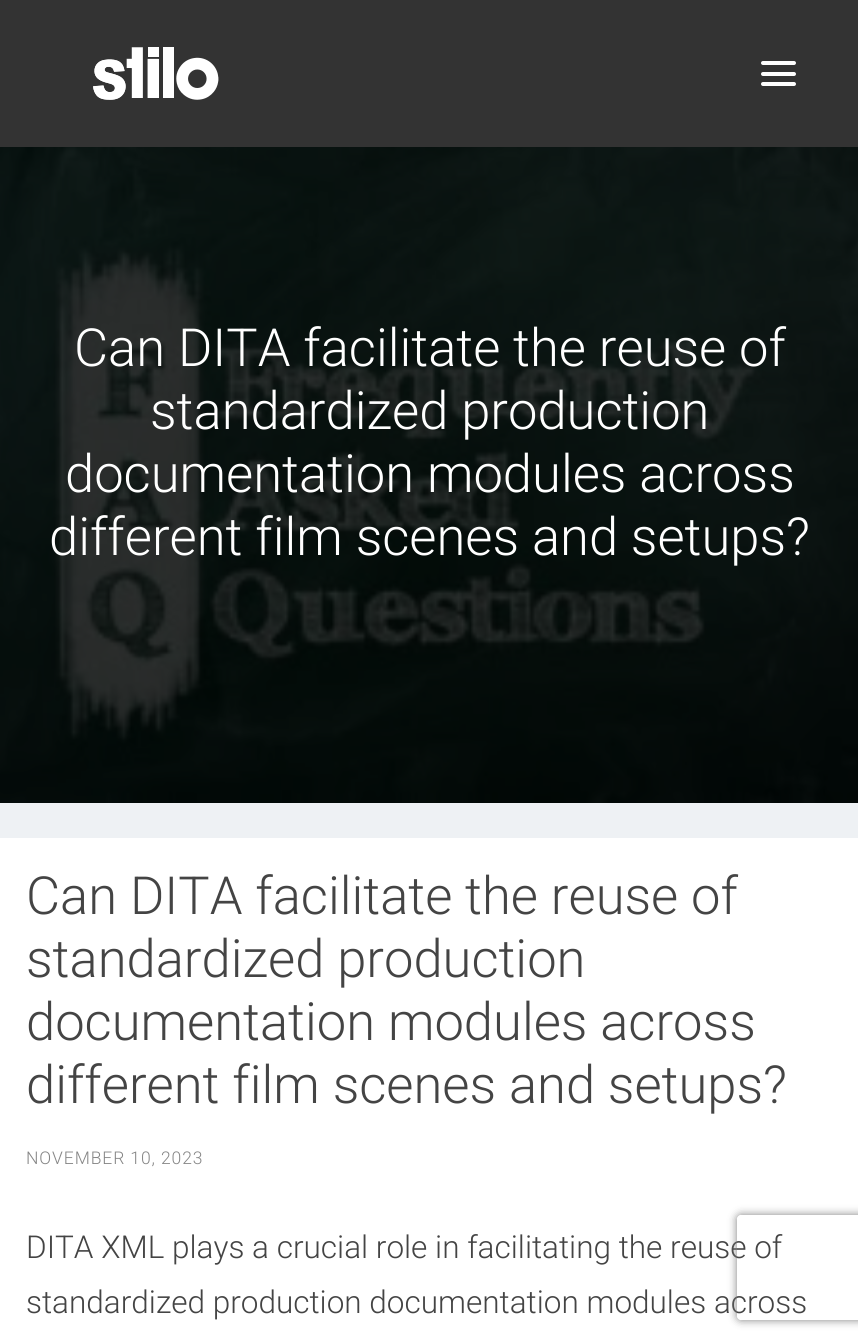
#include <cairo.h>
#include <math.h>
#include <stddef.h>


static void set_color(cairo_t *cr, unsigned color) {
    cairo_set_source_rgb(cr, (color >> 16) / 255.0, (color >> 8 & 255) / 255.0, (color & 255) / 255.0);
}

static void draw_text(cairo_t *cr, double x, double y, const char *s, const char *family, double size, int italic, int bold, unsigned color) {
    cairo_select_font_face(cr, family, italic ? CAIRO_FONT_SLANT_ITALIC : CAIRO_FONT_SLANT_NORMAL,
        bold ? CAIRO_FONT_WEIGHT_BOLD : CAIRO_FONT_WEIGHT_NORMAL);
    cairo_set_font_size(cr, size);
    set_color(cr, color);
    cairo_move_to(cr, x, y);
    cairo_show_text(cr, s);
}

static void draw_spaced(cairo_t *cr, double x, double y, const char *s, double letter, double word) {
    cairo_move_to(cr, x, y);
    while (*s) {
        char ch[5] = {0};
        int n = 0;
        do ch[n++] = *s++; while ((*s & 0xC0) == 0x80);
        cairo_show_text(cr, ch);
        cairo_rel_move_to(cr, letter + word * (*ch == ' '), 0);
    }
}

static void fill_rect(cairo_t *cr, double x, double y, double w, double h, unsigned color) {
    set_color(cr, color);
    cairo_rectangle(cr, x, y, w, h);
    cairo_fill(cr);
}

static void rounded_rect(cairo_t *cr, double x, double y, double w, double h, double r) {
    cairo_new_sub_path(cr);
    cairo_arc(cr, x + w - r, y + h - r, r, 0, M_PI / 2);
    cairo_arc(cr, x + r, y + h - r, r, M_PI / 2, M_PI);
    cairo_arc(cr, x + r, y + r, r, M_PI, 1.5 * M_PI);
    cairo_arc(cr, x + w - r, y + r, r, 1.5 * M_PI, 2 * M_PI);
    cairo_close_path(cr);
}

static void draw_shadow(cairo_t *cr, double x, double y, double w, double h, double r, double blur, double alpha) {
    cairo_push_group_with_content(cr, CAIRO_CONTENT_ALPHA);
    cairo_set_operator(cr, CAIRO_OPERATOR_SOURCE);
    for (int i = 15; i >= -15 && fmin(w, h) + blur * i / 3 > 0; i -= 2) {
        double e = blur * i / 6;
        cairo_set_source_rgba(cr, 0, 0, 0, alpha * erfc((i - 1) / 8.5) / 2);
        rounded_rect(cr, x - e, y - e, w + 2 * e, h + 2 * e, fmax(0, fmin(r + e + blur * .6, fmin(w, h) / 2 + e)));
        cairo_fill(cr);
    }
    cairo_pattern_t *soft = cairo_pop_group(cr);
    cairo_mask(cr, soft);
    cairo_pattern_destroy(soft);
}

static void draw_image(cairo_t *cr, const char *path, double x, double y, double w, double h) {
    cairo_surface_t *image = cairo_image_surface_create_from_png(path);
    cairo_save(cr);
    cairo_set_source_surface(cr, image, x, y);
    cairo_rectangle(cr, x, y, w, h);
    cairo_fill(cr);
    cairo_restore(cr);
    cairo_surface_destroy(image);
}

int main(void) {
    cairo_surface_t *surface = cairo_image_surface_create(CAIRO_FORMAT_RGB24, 858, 1343);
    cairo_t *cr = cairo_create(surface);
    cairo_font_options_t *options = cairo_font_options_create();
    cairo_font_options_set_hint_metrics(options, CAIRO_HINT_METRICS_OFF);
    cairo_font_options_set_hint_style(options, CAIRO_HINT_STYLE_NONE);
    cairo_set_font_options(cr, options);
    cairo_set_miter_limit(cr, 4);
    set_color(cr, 0xEEF1F4);
    cairo_paint(cr);
    fill_rect(cr, 0, 0, 858, 147, 0x333333);
    draw_image(cr, "assets/img1.png", 93, 47, 126, 53);
    set_color(cr, 0xFFFFFF);
    rounded_rect(cr, 761, 72, 35, 4, 2);
    cairo_fill(cr);
    rounded_rect(cr, 761, 61, 35, 4, 2);
    cairo_fill(cr);
    rounded_rect(cr, 761, 82, 35, 4, 2);
    cairo_fill(cr);
    draw_image(cr, "assets/img2.png", 0, 147, 858, 656);
    draw_text(cr, 74, 366, "Can DITA facilitate the reuse of", "Roboto Light", 52.5, 0, 0, 0xFFFFFF);
    draw_text(cr, 150, 429, "standardized production", "Roboto Light", 52.5, 0, 0, 0xFFFFFF);
    draw_text(cr, 65, 492, "documentation modules across", "Roboto Light", 52.5, 0, 0, 0xFFFFFF);
    draw_text(cr, 49, 555, "different film scenes and setups?", "Roboto Light", 52.5, 0, 0, 0xFFFFFF);
    fill_rect(cr, 0, 838, 858, 505, 0xFFFFFF);
    draw_text(cr, 26, 914, "Can DITA facilitate the reuse of", "Roboto Light", 52.5, 0, 0, 0x444444);
    draw_text(cr, 26, 977, "standardized production", "Roboto Light", 52.5, 0, 0, 0x444444);
    draw_text(cr, 26, 1040, "documentation modules across", "Roboto Light", 52.5, 0, 0, 0x444444);
    draw_text(cr, 26, 1103, "different film scenes and setups?", "Roboto Light", 52.5, 0, 0, 0x444444);
    cairo_set_font_size(cr, 17.5);
    set_color(cr, 0x858585);
    draw_spaced(cr, 26, 1164, "NOVEMBER 10, 2023", 0.9, 0);
    draw_text(cr, 26, 1258, "DITA XML plays a crucial role in facilitating the reuse of", "Roboto Light", 31.5, 0, 0, 0x444444);
    draw_text(cr, 26, 1313, "standardized production documentation modules across", "Roboto Light", 31.5, 0, 0, 0x444444);
    cairo_save(cr);
    cairo_set_fill_rule(cr, CAIRO_FILL_RULE_EVEN_ODD);
    cairo_new_path(cr);
    cairo_move_to(cr, 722, 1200);
    cairo_line_to(cr, 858, 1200);
    cairo_line_to(cr, 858, 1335);
    cairo_line_to(cr, 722, 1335);
    cairo_close_path(cr);
    cairo_move_to(cr, 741, 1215);
    cairo_line_to(cr, 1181, 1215);
    cairo_curve_to(cr, 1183, 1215, 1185, 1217, 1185, 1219);
    cairo_line_to(cr, 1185, 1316);
    cairo_curve_to(cr, 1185, 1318, 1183, 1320, 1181, 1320);
    cairo_line_to(cr, 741, 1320);
    cairo_curve_to(cr, 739, 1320, 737, 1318, 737, 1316);
    cairo_line_to(cr, 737, 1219);
    cairo_curve_to(cr, 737, 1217, 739, 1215, 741, 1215);
    cairo_close_path(cr);
    cairo_clip(cr);
    set_color(cr, 0x808080);
    draw_shadow(cr, 737, 1215, 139, 105, 4, 4.5, 1);
    cairo_restore(cr);
    cairo_surface_write_to_png(surface, "output.png");
    cairo_font_options_destroy(options);
    cairo_destroy(cr);
    cairo_surface_destroy(surface);
    return 0;
}
